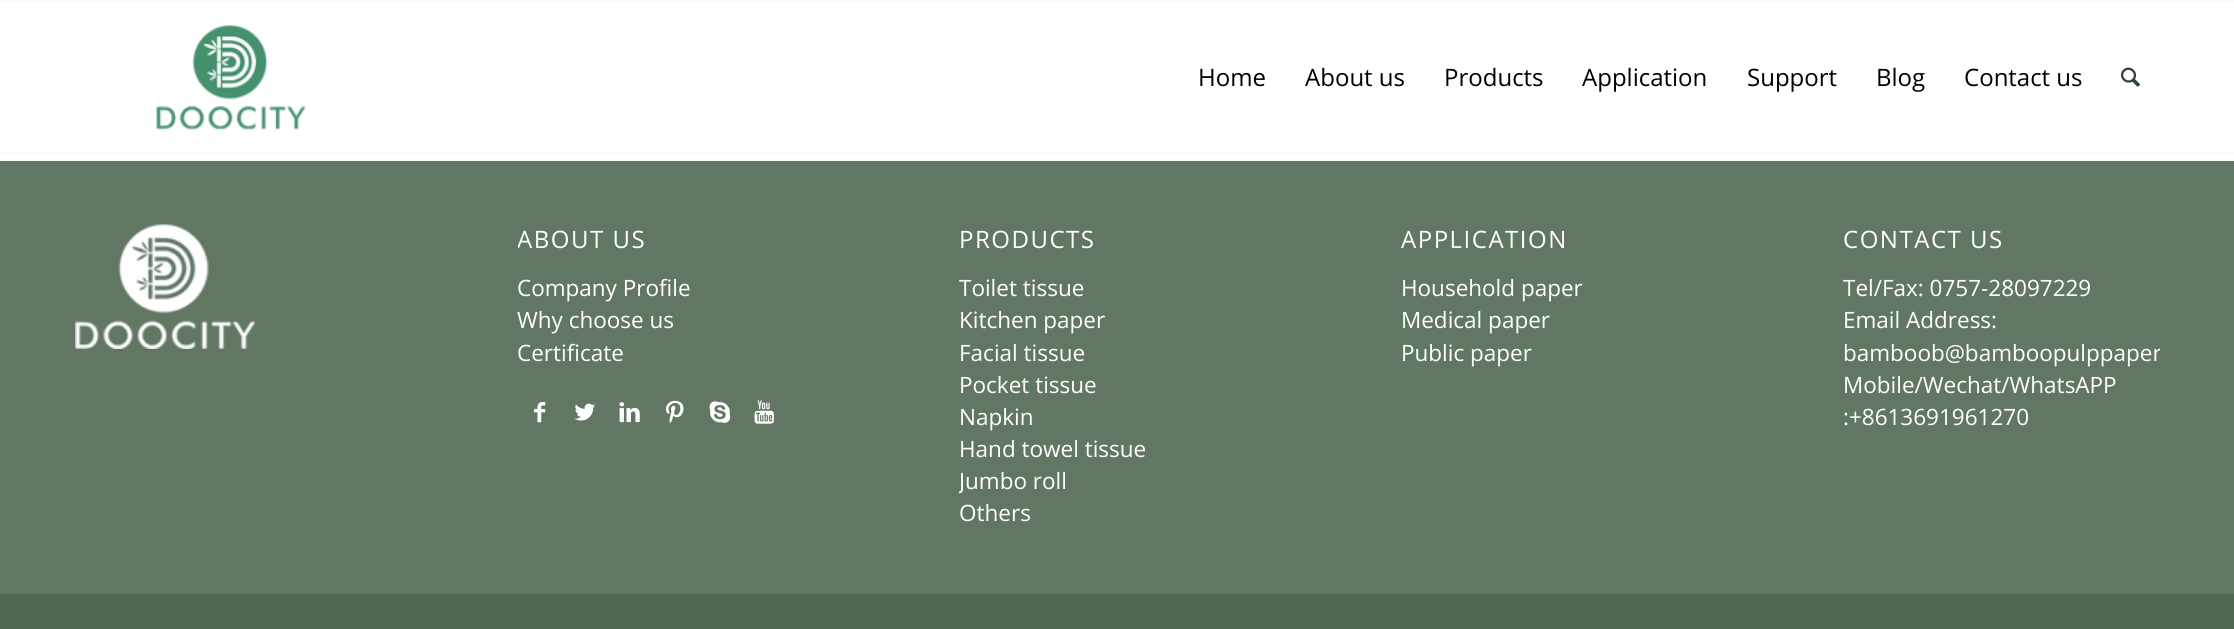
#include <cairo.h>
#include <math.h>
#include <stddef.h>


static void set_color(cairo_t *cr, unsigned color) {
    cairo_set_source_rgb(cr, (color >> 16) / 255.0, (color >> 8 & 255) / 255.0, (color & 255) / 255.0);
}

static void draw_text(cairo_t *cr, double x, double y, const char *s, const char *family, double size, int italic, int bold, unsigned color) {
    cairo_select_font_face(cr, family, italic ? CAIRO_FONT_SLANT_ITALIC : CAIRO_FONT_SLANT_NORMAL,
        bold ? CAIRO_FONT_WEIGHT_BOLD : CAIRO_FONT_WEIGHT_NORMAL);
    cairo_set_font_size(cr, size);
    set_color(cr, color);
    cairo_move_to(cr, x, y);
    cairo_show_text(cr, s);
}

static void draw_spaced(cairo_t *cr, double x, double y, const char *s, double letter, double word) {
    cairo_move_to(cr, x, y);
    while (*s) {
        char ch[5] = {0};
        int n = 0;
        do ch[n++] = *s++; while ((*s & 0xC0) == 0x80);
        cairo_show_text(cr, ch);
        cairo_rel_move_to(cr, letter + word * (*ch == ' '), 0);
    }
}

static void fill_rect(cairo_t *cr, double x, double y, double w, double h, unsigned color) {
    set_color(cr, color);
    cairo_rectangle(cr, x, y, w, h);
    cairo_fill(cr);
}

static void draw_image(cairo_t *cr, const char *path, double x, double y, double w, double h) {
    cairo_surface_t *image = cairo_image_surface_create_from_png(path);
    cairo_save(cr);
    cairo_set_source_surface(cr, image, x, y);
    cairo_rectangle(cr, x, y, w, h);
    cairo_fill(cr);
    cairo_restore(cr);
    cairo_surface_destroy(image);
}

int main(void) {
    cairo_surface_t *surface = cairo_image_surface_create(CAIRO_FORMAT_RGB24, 2234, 629);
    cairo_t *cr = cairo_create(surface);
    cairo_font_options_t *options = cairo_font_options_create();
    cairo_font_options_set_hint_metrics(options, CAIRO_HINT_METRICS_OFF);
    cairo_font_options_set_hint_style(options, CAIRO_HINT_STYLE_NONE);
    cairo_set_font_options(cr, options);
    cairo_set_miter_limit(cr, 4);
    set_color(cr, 0xFFFFFF);
    cairo_paint(cr);
    fill_rect(cr, 0, 0, 2234, 2, 0xF8F8F8);
    fill_rect(cr, 0, 152, 2234, 2, 0xF8F8F8);
    draw_image(cr, "assets/img1.png", 156, 25, 150, 106);
    draw_text(cr, 1198, 86, "Home", "Open Sans", 24, 0, 0, 0x000000);
    draw_text(cr, 1305, 86, "About us", "Open Sans", 24, 0, 0, 0x000000);
    draw_text(cr, 1444, 86, "Products", "Open Sans", 24, 0, 0, 0x000000);
    draw_text(cr, 1582, 86, "Application", "Open Sans", 24, 0, 0, 0x000000);
    draw_text(cr, 1747, 86, "Support", "Open Sans", 24, 0, 0, 0x000000);
    draw_text(cr, 1876, 86, "Blog", "Open Sans", 24, 0, 0, 0x000000);
    draw_text(cr, 1964, 86, "Contact us", "Open Sans", 24, 0, 0, 0x000000);
    draw_image(cr, "assets/img2.png", 2121, 67, 19, 20);
    fill_rect(cr, 0, 161, 2234, 433, 0x617764);
    draw_image(cr, "assets/img3.png", 75, 224, 180, 125);
    cairo_save(cr);
    cairo_rectangle(cr, 518, 207, 316, 227);
    cairo_clip(cr);
    set_color(cr, 0xFFFFFF);
    draw_spaced(cr, 517, 248, "ABOUT US", 1.5, 0);
    cairo_restore(cr);
    draw_text(cr, 517, 296, "Company Profile", "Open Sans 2", 22.5, 0, 0, 0xFFFFFF);
    draw_text(cr, 517, 328, "Why choose us", "Open Sans 2", 22.5, 0, 0, 0xFFFFFF);
    draw_text(cr, 517, 361, "Certificate", "Open Sans 2", 22.5, 0, 0, 0xFFFFFF);
    draw_image(cr, "assets/img4.png", 534, 402, 12, 21);
    draw_image(cr, "assets/img5.png", 574, 403, 21, 18);
    draw_image(cr, "assets/img6.png", 619, 402, 21, 21);
    draw_image(cr, "assets/img7.png", 666, 400, 18, 24);
    draw_image(cr, "assets/img8.png", 709, 401, 22, 22);
    draw_image(cr, "assets/img9.png", 754, 400, 20, 24);
    cairo_select_font_face(cr, "Open Sans", CAIRO_FONT_SLANT_NORMAL, CAIRO_FONT_WEIGHT_NORMAL);
    cairo_set_font_size(cr, 24);
    draw_spaced(cr, 959, 248, "PRODUCTS", 1.5, 0);
    draw_text(cr, 959, 296, "Toilet tissue", "Open Sans 2", 22.5, 0, 0, 0xFFFFFF);
    draw_text(cr, 959, 328, "Kitchen paper", "Open Sans 2", 22.5, 0, 0, 0xFFFFFF);
    draw_text(cr, 959, 361, "Facial tissue", "Open Sans 2", 22.5, 0, 0, 0xFFFFFF);
    draw_text(cr, 959, 393, "Pocket tissue", "Open Sans 2", 22.5, 0, 0, 0xFFFFFF);
    draw_text(cr, 959, 425, "Napkin", "Open Sans 2", 22.5, 0, 0, 0xFFFFFF);
    draw_text(cr, 959, 457, "Hand towel tissue", "Open Sans 2", 22.5, 0, 0, 0xFFFFFF);
    cairo_save(cr);
    cairo_rectangle(cr, 959, 207, 318, 342);
    cairo_clip(cr);
    draw_text(cr, 959, 489, "Jumbo roll", "Open Sans 2", 22.5, 0, 0, 0xFFFFFF);
    cairo_restore(cr);
    draw_text(cr, 959, 521, "Others", "Open Sans 2", 22.5, 0, 0, 0xFFFFFF);
    cairo_select_font_face(cr, "Open Sans", CAIRO_FONT_SLANT_NORMAL, CAIRO_FONT_WEIGHT_NORMAL);
    cairo_set_font_size(cr, 24);
    draw_spaced(cr, 1401, 248, "APPLICATION", 1.5, 0);
    draw_text(cr, 1401, 296, "Household paper", "Open Sans 2", 22.5, 0, 0, 0xFFFFFF);
    draw_text(cr, 1401, 328, "Medical paper", "Open Sans 2", 22.5, 0, 0, 0xFFFFFF);
    draw_text(cr, 1401, 361, "Public paper", "Open Sans 2", 22.5, 0, 0, 0xFFFFFF);
    cairo_select_font_face(cr, "Open Sans", CAIRO_FONT_SLANT_NORMAL, CAIRO_FONT_WEIGHT_NORMAL);
    cairo_set_font_size(cr, 24);
    draw_spaced(cr, 1843, 248, "CONTACT US", 1.5, 0);
    draw_text(cr, 1843, 296, "Tel/Fax: 0757-28097229", "Open Sans 2", 22.5, 0, 0, 0xFFFFFF);
    draw_text(cr, 1843, 328, "Email Address:", "Open Sans 2", 22.5, 0, 0, 0xFFFFFF);
    cairo_save(cr);
    cairo_rectangle(cr, 1844, 207, 316, 245);
    cairo_clip(cr);
    draw_text(cr, 1843, 361, "bamboob@bamboopulppaper", "Open Sans 2", 22.5, 0, 0, 0xFFFFFF);
    cairo_restore(cr);
    draw_text(cr, 1843, 393, "Mobile/Wechat/WhatsAPP", "Open Sans 2", 22.5, 0, 0, 0xFFFFFF);
    draw_text(cr, 1843, 425, ":+8613691961270", "Open Sans 2", 22.5, 0, 0, 0xFFFFFF);
    fill_rect(cr, 0, 594, 2234, 35, 0x516954);
    cairo_surface_write_to_png(surface, "output.png");
    cairo_font_options_destroy(options);
    cairo_destroy(cr);
    cairo_surface_destroy(surface);
    return 0;
}
